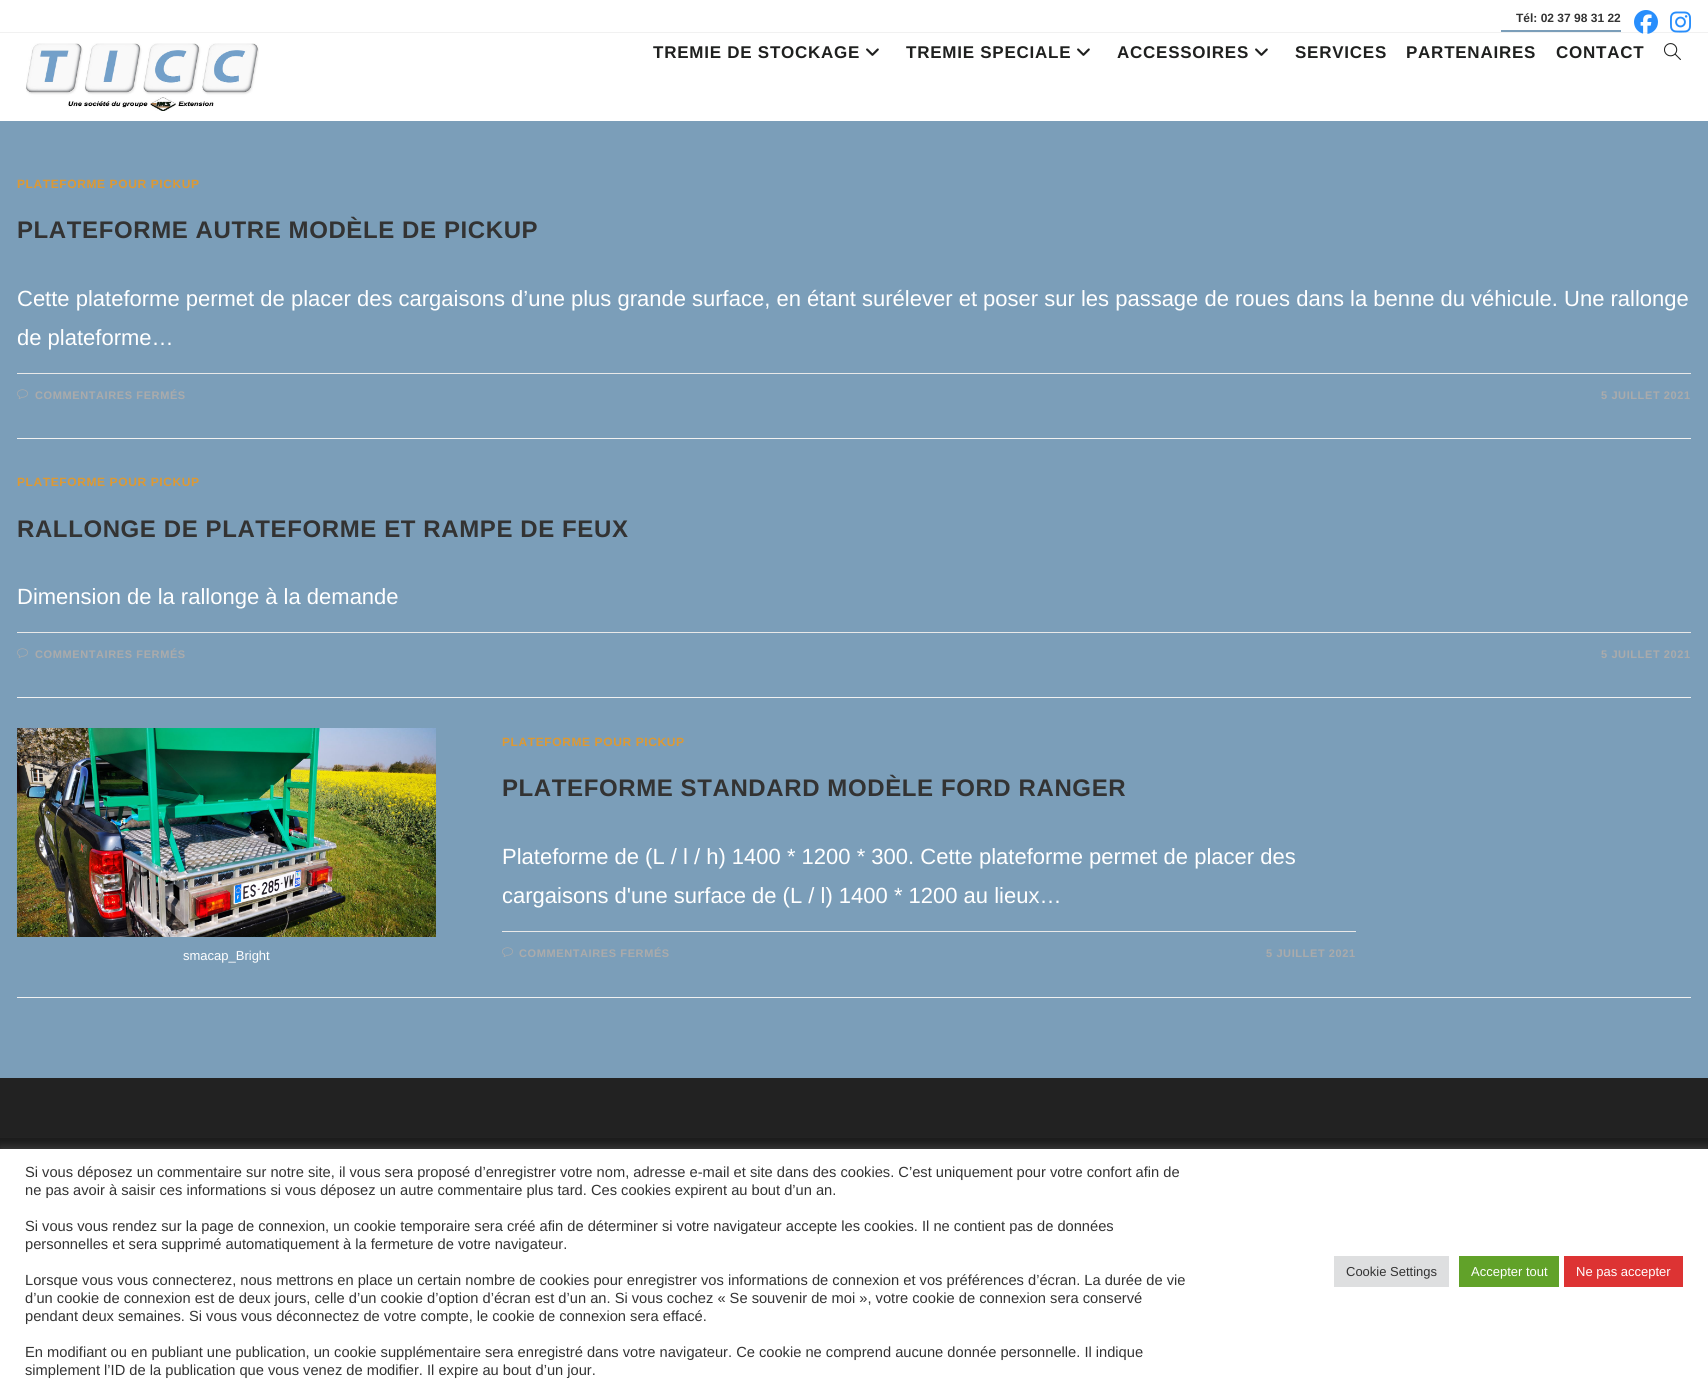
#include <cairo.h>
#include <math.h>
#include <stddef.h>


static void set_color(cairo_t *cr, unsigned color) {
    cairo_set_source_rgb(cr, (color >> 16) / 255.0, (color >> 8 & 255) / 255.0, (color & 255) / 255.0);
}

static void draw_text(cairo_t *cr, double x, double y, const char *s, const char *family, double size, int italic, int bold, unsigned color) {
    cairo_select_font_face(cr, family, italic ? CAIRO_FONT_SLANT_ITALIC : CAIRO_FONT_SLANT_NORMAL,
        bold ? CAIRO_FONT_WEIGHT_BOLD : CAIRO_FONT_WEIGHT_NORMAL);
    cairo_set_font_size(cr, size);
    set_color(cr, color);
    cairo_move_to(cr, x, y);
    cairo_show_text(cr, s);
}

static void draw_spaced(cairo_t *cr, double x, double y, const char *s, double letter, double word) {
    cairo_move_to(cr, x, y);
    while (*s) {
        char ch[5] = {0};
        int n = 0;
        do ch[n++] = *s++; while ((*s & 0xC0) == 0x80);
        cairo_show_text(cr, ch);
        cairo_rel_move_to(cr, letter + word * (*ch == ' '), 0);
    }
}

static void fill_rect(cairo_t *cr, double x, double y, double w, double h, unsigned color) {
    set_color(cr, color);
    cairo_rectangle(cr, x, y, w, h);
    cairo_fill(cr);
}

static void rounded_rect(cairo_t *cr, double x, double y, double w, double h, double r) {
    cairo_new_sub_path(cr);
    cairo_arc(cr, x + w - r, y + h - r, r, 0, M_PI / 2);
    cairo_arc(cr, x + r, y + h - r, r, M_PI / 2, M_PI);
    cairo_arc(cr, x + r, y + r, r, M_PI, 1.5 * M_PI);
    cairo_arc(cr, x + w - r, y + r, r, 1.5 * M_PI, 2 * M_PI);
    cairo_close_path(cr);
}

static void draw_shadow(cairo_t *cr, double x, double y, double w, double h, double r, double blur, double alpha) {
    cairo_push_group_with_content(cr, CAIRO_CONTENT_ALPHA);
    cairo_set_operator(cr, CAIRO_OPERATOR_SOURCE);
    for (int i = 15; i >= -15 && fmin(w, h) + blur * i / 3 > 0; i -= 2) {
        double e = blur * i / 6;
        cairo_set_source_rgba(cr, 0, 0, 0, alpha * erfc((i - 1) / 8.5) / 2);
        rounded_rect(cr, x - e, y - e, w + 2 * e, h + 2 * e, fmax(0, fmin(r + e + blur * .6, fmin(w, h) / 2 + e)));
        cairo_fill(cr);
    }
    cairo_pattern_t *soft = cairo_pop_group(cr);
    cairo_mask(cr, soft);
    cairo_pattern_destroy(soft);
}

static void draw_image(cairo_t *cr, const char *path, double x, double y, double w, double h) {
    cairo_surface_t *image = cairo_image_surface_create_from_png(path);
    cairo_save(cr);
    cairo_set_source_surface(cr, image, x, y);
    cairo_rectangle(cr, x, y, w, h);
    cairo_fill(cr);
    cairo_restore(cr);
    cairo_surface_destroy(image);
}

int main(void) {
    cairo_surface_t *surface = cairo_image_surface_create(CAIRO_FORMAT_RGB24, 1708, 1393);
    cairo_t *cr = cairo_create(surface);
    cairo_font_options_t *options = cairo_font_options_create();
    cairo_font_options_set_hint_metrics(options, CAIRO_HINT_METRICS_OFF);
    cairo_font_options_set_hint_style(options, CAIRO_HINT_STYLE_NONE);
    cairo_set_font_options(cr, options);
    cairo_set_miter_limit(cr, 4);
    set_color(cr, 0x7B9EB9);
    cairo_paint(cr);
    fill_rect(cr, 0, 0, 1708, 32, 0xFFFFFF);
    fill_rect(cr, 0, 32, 1708, 1, 0xF1F1F1);
    fill_rect(cr, 1501, 30, 120, 2, 0x7B9EB9);
    draw_text(cr, 1516, 22, "Tél: 02 37 98 31 22", "Liberation Sans", 12, 0, 1, 0x333333);
    fill_rect(cr, 0, 33, 1708, 88, 0xFFFFFF);
    draw_image(cr, "assets/img1.png", 1634, 10, 24, 24);
    draw_image(cr, "assets/img2.png", 1670, 11, 21, 22);
    draw_image(cr, "assets/img3.png", 25, 43, 234, 68);
    cairo_set_font_size(cr, 17);
    set_color(cr, 0x1F201F);
    draw_spaced(cr, 653, 58, "TREMIE DE STOCKAGE", 0.75, 0);
    draw_image(cr, "assets/img4.png", 866, 48, 13, 8);
    draw_spaced(cr, 906, 58, "TREMIE SPECIALE", 0.75, 0);
    draw_image(cr, "assets/img4.png", 1077, 48, 13, 8);
    draw_spaced(cr, 1117, 58, "ACCESSOIRES", 0.75, 0);
    draw_image(cr, "assets/img4.png", 1255, 48, 13, 8);
    draw_spaced(cr, 1295, 58, "SERVICES", 0.75, 0);
    draw_spaced(cr, 1406, 58, "PARTENAIRES", 0.75, 0);
    draw_spaced(cr, 1556, 58, "CONTACT", 0.75, 0);
    draw_image(cr, "assets/img5.png", 1664, 43, 17, 17);
    fill_rect(cr, 17, 438, 1674, 1, 0xF1F1F1);
    cairo_set_font_size(cr, 12);
    set_color(cr, 0xDD9933);
    draw_spaced(cr, 17, 188, "PLATEFORME POUR PICKUP", 0.6, 0);
    cairo_set_font_size(cr, 24);
    set_color(cr, 0x333333);
    draw_spaced(cr, 17, 238, "PLATEFORME AUTRE MODÈLE DE PICKUP", 0.6, 0);
    draw_text(cr, 17, 306, "Cette plateforme permet de placer des cargaisons d’une plus grande surface, en étant surélever et poser sur les passage de roues dans la benne du véhicule. Une rallonge", "Liberation Sans", 22, 0, 0, 0xFFFFFF);
    draw_text(cr, 17, 345, "de plateforme…", "Liberation Sans", 22, 0, 0, 0xFFFFFF);
    fill_rect(cr, 17, 373, 1674, 1, 0xE9E9E9);
    draw_image(cr, "assets/img6.png", 17, 389, 11, 10);
    cairo_select_font_face(cr, "Liberation Sans", CAIRO_FONT_SLANT_NORMAL, CAIRO_FONT_WEIGHT_BOLD);
    cairo_set_font_size(cr, 11);
    set_color(cr, 0xABABAB);
    draw_spaced(cr, 35, 399, "COMMENTAIRES FERMÉS", 0.6, 0);
    draw_spaced(cr, 1601, 399, "5 JUILLET 2021", 0.6, 0);
    fill_rect(cr, 17, 697, 1674, 1, 0xF1F1F1);
    cairo_set_font_size(cr, 12);
    set_color(cr, 0xDD9933);
    draw_spaced(cr, 17, 486, "PLATEFORME POUR PICKUP", 0.6, 0);
    cairo_set_font_size(cr, 24);
    set_color(cr, 0x333333);
    draw_spaced(cr, 17, 537, "RALLONGE DE PLATEFORME ET RAMPE DE FEUX", 0.6, 0);
    draw_text(cr, 17, 604, "Dimension de la rallonge à la demande", "Liberation Sans", 22, 0, 0, 0xFFFFFF);
    fill_rect(cr, 17, 632, 1674, 1, 0xE9E9E9);
    draw_image(cr, "assets/img6.png", 17, 648, 11, 10);
    cairo_select_font_face(cr, "Liberation Sans", CAIRO_FONT_SLANT_NORMAL, CAIRO_FONT_WEIGHT_BOLD);
    cairo_set_font_size(cr, 11);
    set_color(cr, 0xABABAB);
    draw_spaced(cr, 35, 658, "COMMENTAIRES FERMÉS", 0.6, 0);
    draw_spaced(cr, 1601, 658, "5 JUILLET 2021", 0.6, 0);
    fill_rect(cr, 17, 997, 1674, 1, 0xF1F1F1);
    draw_image(cr, "assets/img7.png", 17, 728, 419, 209);
    draw_text(cr, 183, 960, "smacap_Bright", "Liberation Sans", 13, 0, 0, 0xFFFFFF);
    cairo_select_font_face(cr, "Liberation Sans", CAIRO_FONT_SLANT_NORMAL, CAIRO_FONT_WEIGHT_BOLD);
    cairo_set_font_size(cr, 12);
    set_color(cr, 0xDD9933);
    draw_spaced(cr, 502, 746, "PLATEFORME POUR PICKUP", 0.6, 0);
    cairo_set_font_size(cr, 24);
    set_color(cr, 0x333333);
    draw_spaced(cr, 502, 796, "PLATEFORME STANDARD MODÈLE FORD RANGER", 0.6, 0);
    draw_text(cr, 502, 864, "Plateforme de (L / l / h) 1400 * 1200 * 300. Cette plateforme permet de placer des", "Liberation Sans", 22, 0, 0, 0xFFFFFF);
    draw_text(cr, 502, 903, "cargaisons d'une surface de (L / l) 1400 * 1200 au lieux…", "Liberation Sans", 22, 0, 0, 0xFFFFFF);
    fill_rect(cr, 502, 931, 854, 1, 0xE9E9E9);
    draw_image(cr, "assets/img6.png", 502, 947, 11, 10);
    cairo_select_font_face(cr, "Liberation Sans", CAIRO_FONT_SLANT_NORMAL, CAIRO_FONT_WEIGHT_BOLD);
    cairo_set_font_size(cr, 11);
    set_color(cr, 0xABABAB);
    draw_spaced(cr, 519, 957, "COMMENTAIRES FERMÉS", 0.6, 0);
    draw_spaced(cr, 1266, 957, "5 JUILLET 2021", 0.6, 0);
    fill_rect(cr, 0, 1078, 1708, 60, 0x222222);
    fill_rect(cr, 0, 1138, 1708, 11, 0x1B1B1B);
    set_color(cr, 0xACABAB);
    draw_shadow(cr, 0, 1148, 1708, 244, 0, 5, 0.3);
    fill_rect(cr, 0, 1149, 1708, 244, 0xFFFFFF);
    draw_text(cr, 25, 1177, "Si vous déposez un commentaire sur notre site, il vous sera proposé d’enregistrer votre nom, adresse e-mail et site dans des cookies. C’est uniquement pour votre confort afin de", "Liberation Sans", 14.67, 0, 0, 0x333333);
    draw_text(cr, 25, 1195, "ne pas avoir à saisir ces informations si vous déposez un autre commentaire plus tard. Ces cookies expirent au bout d’un an.", "Liberation Sans", 14.67, 0, 0, 0x333333);
    draw_text(cr, 25, 1231, "Si vous vous rendez sur la page de connexion, un cookie temporaire sera créé afin de déterminer si votre navigateur accepte les cookies. Il ne contient pas de données", "Liberation Sans", 14.67, 0, 0, 0x333333);
    draw_text(cr, 25, 1249, "personnelles et sera supprimé automatiquement à la fermeture de votre navigateur.", "Liberation Sans", 14.67, 0, 0, 0x333333);
    draw_text(cr, 25, 1285, "Lorsque vous vous connecterez, nous mettrons en place un certain nombre de cookies pour enregistrer vos informations de connexion et vos préférences d’écran. La durée de vie", "Liberation Sans", 14.67, 0, 0, 0x333333);
    draw_text(cr, 25, 1303, "d’un cookie de connexion est de deux jours, celle d’un cookie d’option d’écran est d’un an. Si vous cochez « Se souvenir de moi », votre cookie de connexion sera conservé", "Liberation Sans", 14.67, 0, 0, 0x333333);
    draw_text(cr, 25, 1321, "pendant deux semaines. Si vous vous déconnectez de votre compte, le cookie de connexion sera effacé.", "Liberation Sans", 14.67, 0, 0, 0x333333);
    draw_text(cr, 25, 1357, "En modifiant ou en publiant une publication, un cookie supplémentaire sera enregistré dans votre navigateur. Ce cookie ne comprend aucune donnée personnelle. Il indique", "Liberation Sans", 14.67, 0, 0, 0x333333);
    draw_text(cr, 25, 1375, "simplement l’ID de la publication que vous venez de modifier. Il expire au bout d’un jour.", "Liberation Sans", 14.67, 0, 0, 0x333333);
    fill_rect(cr, 1334, 1256, 115, 31, 0xDEDFE0);
    draw_text(cr, 1346, 1276, "Cookie Settings", "Liberation Sans", 13, 0, 0, 0x333333);
    fill_rect(cr, 1459, 1256, 100, 31, 0x61A229);
    draw_text(cr, 1471, 1276, "Accepter tout", "Liberation Sans", 13, 0, 0, 0xFFFFFF);
    fill_rect(cr, 1564, 1256, 119, 31, 0xDD3333);
    draw_text(cr, 1576, 1276, "Ne pas accepter", "Liberation Sans", 13, 0, 0, 0xFFFFFF);
    cairo_surface_write_to_png(surface, "output.png");
    cairo_font_options_destroy(options);
    cairo_destroy(cr);
    cairo_surface_destroy(surface);
    return 0;
}
